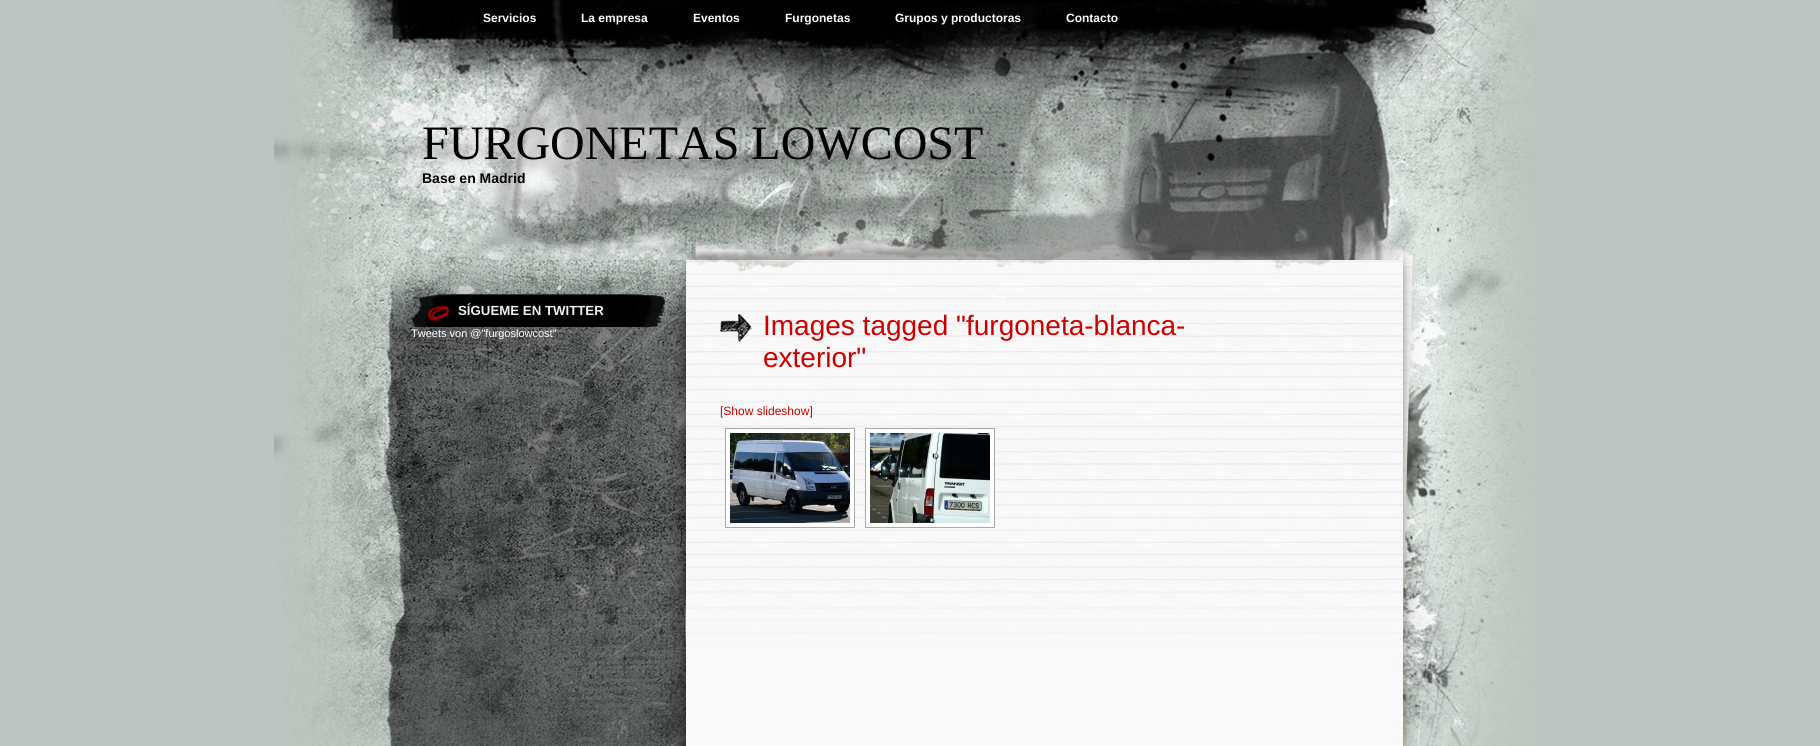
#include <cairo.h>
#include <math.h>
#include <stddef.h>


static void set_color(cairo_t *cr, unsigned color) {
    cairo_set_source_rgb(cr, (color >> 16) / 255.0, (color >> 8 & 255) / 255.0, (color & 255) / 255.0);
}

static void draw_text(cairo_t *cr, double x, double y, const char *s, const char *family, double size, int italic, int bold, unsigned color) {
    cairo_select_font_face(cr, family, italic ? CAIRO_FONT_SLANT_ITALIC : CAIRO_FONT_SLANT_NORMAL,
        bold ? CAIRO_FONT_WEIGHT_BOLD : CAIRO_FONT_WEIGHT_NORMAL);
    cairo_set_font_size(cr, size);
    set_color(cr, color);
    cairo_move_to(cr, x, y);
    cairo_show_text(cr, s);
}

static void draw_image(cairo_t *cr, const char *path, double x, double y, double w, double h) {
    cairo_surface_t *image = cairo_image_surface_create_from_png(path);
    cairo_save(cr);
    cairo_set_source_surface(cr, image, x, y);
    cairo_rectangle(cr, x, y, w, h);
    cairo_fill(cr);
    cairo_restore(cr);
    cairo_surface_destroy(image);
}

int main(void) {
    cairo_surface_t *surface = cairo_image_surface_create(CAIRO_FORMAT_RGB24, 1820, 746);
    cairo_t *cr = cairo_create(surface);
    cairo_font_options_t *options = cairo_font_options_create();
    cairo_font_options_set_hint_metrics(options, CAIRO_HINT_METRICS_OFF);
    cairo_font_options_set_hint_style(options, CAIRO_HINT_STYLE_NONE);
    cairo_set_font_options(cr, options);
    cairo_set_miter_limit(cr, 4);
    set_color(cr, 0xBCC5C1);
    cairo_paint(cr);
    draw_image(cr, "assets/img1.png", 274, 0, 1263, 746);
    draw_text(cr, 483, 22, "Servicios", "Liberation Sans", 12, 0, 1, 0xFFFFFF);
    draw_text(cr, 581, 22, "La empresa", "Liberation Sans", 12, 0, 1, 0xFFFFFF);
    draw_text(cr, 693, 22, "Eventos", "Liberation Sans", 12, 0, 1, 0xFFFFFF);
    draw_text(cr, 785, 22, "Furgonetas", "Liberation Sans", 12, 0, 1, 0xFFFFFF);
    draw_text(cr, 895, 22, "Grupos y productoras", "Liberation Sans", 12, 0, 1, 0xFFFFFF);
    draw_text(cr, 1066, 22, "Contacto", "Liberation Sans", 12, 0, 1, 0xFFFFFF);
    draw_text(cr, 422, 159, "FURGONETAS LOWCOST", "Liberation Serif", 48, 0, 0, 0x000000);
    draw_text(cr, 422, 183, "Base en Madrid", "Liberation Sans", 14, 0, 1, 0x000000);
    draw_image(cr, "assets/img2.png", 383, 260, 303, 486);
    draw_image(cr, "assets/img3.png", 411, 294, 255, 33);
    draw_text(cr, 458, 315, "SÍGUEME EN TWITTER", "Liberation Sans", 13.25, 0, 1, 0xEEF0EB);
    draw_text(cr, 411, 337, "Tweets von @\"furgoslowcost\"", "Liberation Sans", 11, 0, 0, 0xFFFFFF);
    draw_image(cr, "assets/img4.png", 686, 260, 751, 486);
    draw_image(cr, "assets/img5.png", 720, 314, 32, 28);
    draw_text(cr, 763, 335, "Images tagged \"furgoneta-blanca-", "Liberation Sans", 28, 0, 0, 0xCC0000);
    draw_text(cr, 763, 367, "exterior\"", "Liberation Sans", 28, 0, 0, 0xCC0000);
    draw_text(cr, 720, 415, "[Show slideshow]", "Liberation Sans", 12, 0, 0, 0xCC0000);
    set_color(cr, 0xFFFFFF);
    cairo_rectangle(cr, 725.5, 428.5, 129, 99);
    cairo_fill_preserve(cr);
    set_color(cr, 0xA9A9A9);
    cairo_set_line_width(cr, 1);
    cairo_stroke(cr);
    draw_image(cr, "assets/img6.png", 730, 433, 120, 90);
    set_color(cr, 0xFFFFFF);
    cairo_rectangle(cr, 865.5, 428.5, 129, 99);
    cairo_fill_preserve(cr);
    set_color(cr, 0xA9A9A9);
    cairo_stroke(cr);
    draw_image(cr, "assets/img7.png", 870, 433, 120, 90);
    cairo_surface_write_to_png(surface, "output.png");
    cairo_font_options_destroy(options);
    cairo_destroy(cr);
    cairo_surface_destroy(surface);
    return 0;
}
